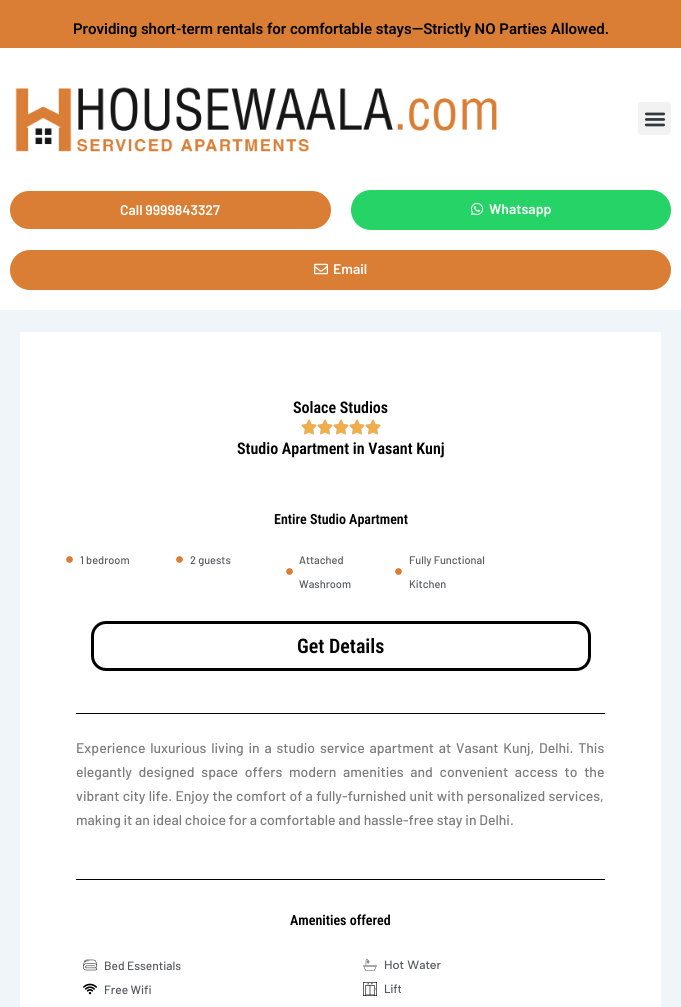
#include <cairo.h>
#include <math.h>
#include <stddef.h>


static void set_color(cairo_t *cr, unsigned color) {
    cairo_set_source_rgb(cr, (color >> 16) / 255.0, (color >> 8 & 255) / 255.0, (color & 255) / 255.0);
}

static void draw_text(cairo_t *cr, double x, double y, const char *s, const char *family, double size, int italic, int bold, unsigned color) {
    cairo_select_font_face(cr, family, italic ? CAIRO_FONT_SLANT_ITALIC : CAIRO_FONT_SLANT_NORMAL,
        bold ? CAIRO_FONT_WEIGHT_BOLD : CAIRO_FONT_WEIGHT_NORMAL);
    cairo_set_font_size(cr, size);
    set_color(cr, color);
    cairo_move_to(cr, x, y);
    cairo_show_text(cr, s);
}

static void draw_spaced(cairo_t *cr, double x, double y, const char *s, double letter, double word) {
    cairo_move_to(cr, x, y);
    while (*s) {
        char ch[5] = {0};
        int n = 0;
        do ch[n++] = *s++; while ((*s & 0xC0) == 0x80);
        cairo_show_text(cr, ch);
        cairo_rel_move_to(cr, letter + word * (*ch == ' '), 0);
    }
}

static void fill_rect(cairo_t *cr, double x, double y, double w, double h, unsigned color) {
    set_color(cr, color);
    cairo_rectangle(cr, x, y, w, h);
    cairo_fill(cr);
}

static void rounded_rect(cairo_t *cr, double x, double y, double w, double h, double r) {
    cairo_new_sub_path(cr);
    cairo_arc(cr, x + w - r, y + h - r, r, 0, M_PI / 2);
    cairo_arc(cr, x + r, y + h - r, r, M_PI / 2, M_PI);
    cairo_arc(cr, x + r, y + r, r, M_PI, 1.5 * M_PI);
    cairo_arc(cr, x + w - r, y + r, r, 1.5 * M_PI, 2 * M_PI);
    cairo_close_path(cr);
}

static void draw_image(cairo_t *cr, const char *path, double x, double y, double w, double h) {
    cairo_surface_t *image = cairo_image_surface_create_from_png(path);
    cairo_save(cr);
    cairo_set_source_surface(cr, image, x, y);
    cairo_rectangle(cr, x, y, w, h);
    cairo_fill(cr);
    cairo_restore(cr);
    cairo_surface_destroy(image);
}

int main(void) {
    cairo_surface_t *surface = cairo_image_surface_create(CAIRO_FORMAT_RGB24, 681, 1007);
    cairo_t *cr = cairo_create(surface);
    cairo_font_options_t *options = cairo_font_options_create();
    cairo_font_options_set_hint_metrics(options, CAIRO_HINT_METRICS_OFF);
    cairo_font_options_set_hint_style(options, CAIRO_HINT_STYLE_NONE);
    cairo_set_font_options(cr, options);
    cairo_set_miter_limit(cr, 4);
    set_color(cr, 0xF0F5FA);
    cairo_paint(cr);
    fill_rect(cr, 0, 0, 681, 48, 0xDA7E35);
    draw_text(cr, 73, 34, "Providing short-term rentals for comfortable stays—Strictly NO Parties Allowed.", "Roboto SemiBold", 15, 0, 0, 0x000000);
    fill_rect(cr, 0, 48, 681, 262, 0xFFFFFF);
    draw_image(cr, "assets/img1.png", 15, 87, 482, 65);
    set_color(cr, 0xF2F2F2);
    rounded_rect(cr, 638, 102, 33, 33, 3);
    cairo_fill(cr);
    draw_image(cr, "assets/img2.png", 644, 112, 22, 15);
    set_color(cr, 0xDA7E35);
    rounded_rect(cr, 10, 191, 321, 38, 19);
    cairo_fill(cr);
    draw_text(cr, 120, 215, "Call 9999843327", "Barlow SemiBold", 14, 0, 0, 0xFFFFFF);
    set_color(cr, 0x25D366);
    rounded_rect(cr, 351, 190, 320, 40, 20);
    cairo_fill(cr);
    draw_image(cr, "assets/img3.png", 470, 202, 14, 13);
    draw_text(cr, 489, 214, "Whatsapp", "Barlow SemiBold", 14, 0, 0, 0xFFFFFF);
    set_color(cr, 0xDA7E35);
    rounded_rect(cr, 10, 250, 661, 40, 20);
    cairo_fill(cr);
    draw_image(cr, "assets/img4.png", 314, 263, 14, 12);
    draw_text(cr, 333, 274, "Email", "Barlow SemiBold", 14, 0, 0, 0xFFFFFF);
    fill_rect(cr, 20, 332, 641, 675, 0xFFFFFF);
    draw_text(cr, 293, 413, "Solace Studios", "Roboto Condensed SemiBold", 16, 0, 0, 0x000000);
    draw_image(cr, "assets/img5.png", 301, 419, 16, 16);
    draw_image(cr, "assets/img6.png", 301, 419, 16, 16);
    draw_image(cr, "assets/img5.png", 317, 419, 16, 16);
    draw_image(cr, "assets/img6.png", 317, 419, 16, 16);
    draw_image(cr, "assets/img5.png", 333, 419, 16, 16);
    draw_image(cr, "assets/img6.png", 333, 419, 16, 16);
    draw_image(cr, "assets/img5.png", 349, 419, 16, 16);
    draw_image(cr, "assets/img6.png", 349, 419, 16, 16);
    draw_image(cr, "assets/img5.png", 365, 419, 16, 16);
    draw_image(cr, "assets/img6.png", 365, 419, 16, 16);
    draw_text(cr, 237, 454, "Studio Apartment in Vasant Kunj", "Roboto Condensed SemiBold", 16, 0, 0, 0x000000);
    draw_text(cr, 274, 524, "Entire Studio Apartment", "Roboto Condensed SemiBold", 14, 0, 0, 0x000000);
    draw_image(cr, "assets/img7.png", 66, 556, 7, 7);
    draw_text(cr, 80, 564, "1 bedroom", "Barlow Medium", 11, 0, 0, 0x54595F);
    draw_image(cr, "assets/img7.png", 176, 556, 7, 7);
    draw_text(cr, 190, 564, "2 guests", "Barlow Medium", 11, 0, 0, 0x54595F);
    draw_image(cr, "assets/img7.png", 286, 568, 7, 7);
    draw_text(cr, 299, 564, "Attached", "Barlow Medium", 11, 0, 0, 0x54595F);
    draw_text(cr, 299, 588, "Washroom", "Barlow Medium", 11, 0, 0, 0x54595F);
    draw_image(cr, "assets/img7.png", 395, 568, 7, 7);
    draw_text(cr, 409, 564, "Fully Functional", "Barlow Medium", 11, 0, 0, 0x54595F);
    draw_text(cr, 409, 588, "Kitchen", "Barlow Medium", 11, 0, 0, 0x54595F);
    rounded_rect(cr, 92.5, 622.5, 497, 47, 13.5);
    set_color(cr, 0x000000);
    cairo_set_line_width(cr, 3);
    cairo_stroke(cr);
    draw_text(cr, 297, 653, "Get Details", "Roboto Condensed SemiBold", 20, 0, 0, 0x000000);
    fill_rect(cr, 76, 713, 529, 1, 0x000000);
    cairo_select_font_face(cr, "Barlow Medium", CAIRO_FONT_SLANT_NORMAL, CAIRO_FONT_WEIGHT_NORMAL);
    cairo_set_font_size(cr, 14);
    set_color(cr, 0x7A7A7A);
    draw_spaced(cr, 76, 753, "Experience luxurious living in a studio service apartment at Vasant Kunj, Delhi. This", 0, 2);
    draw_spaced(cr, 76, 777, "elegantly designed space offers modern amenities and convenient access to the", 0, 3.9);
    draw_spaced(cr, 76, 801, "vibrant city life. Enjoy the comfort of a fully-furnished unit with personalized services,", 0, 0.5);
    draw_text(cr, 76, 825, "making it an ideal choice for a comfortable and hassle-free stay in Delhi.", "Barlow Medium", 14, 0, 0, 0x7A7A7A);
    fill_rect(cr, 76, 879, 529, 1, 0x000000);
    draw_text(cr, 290, 925, "Amenities offered", "Roboto Condensed SemiBold", 14, 0, 0, 0x000000);
    draw_image(cr, "assets/img8.png", 83, 959, 14, 12);
    draw_text(cr, 104, 970, "Bed Essentials", "Barlow Medium", 12, 0, 0, 0x54595F);
    draw_image(cr, "assets/img9.png", 83, 983, 14, 12);
    draw_text(cr, 104, 994, "Free Wifi", "Barlow Medium", 12, 0, 0, 0x54595F);
    draw_image(cr, "assets/img10.png", 363, 959, 14, 12);
    draw_text(cr, 384, 969, "Hot Water", "Albert Sans Medium", 12, 0, 0, 0x54595F);
    draw_image(cr, "assets/img11.png", 363, 982, 14, 14);
    draw_text(cr, 384, 993, "Lift", "Albert Sans Medium", 12, 0, 0, 0x54595F);
    cairo_surface_write_to_png(surface, "output.png");
    cairo_font_options_destroy(options);
    cairo_destroy(cr);
    cairo_surface_destroy(surface);
    return 0;
}
